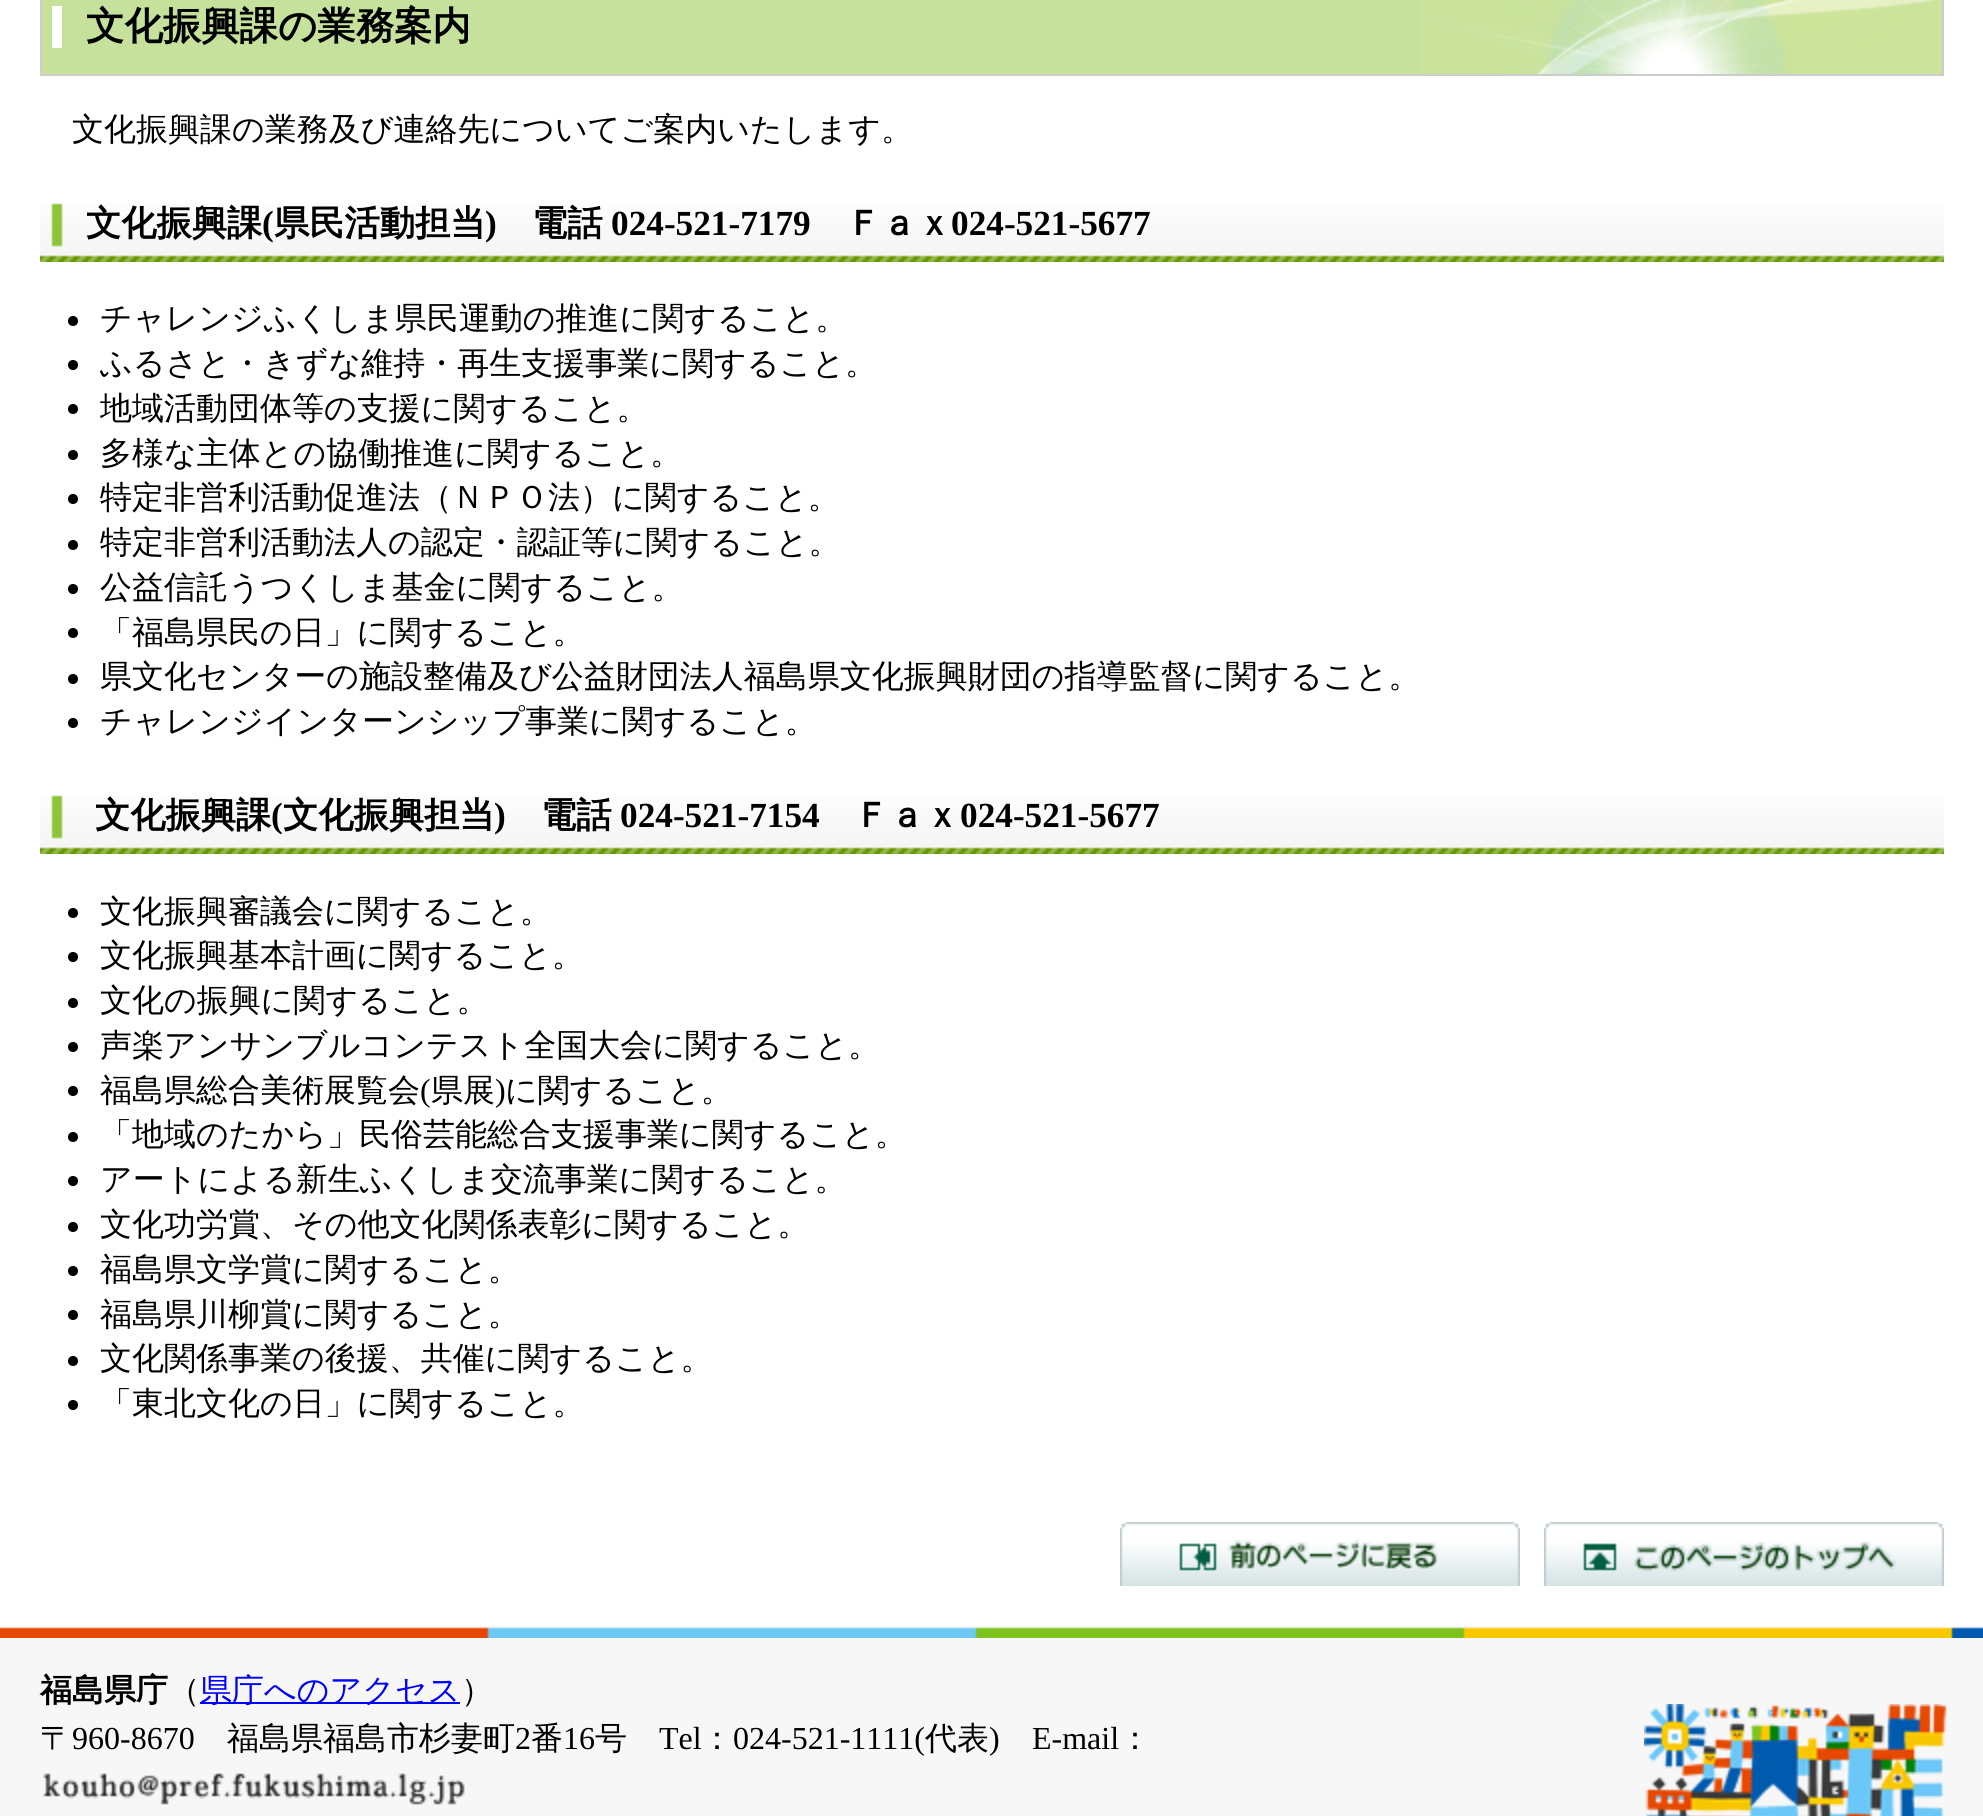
#include <cairo.h>
#include <math.h>
#include <stddef.h>


static void set_color(cairo_t *cr, unsigned color) {
    cairo_set_source_rgb(cr, (color >> 16) / 255.0, (color >> 8 & 255) / 255.0, (color & 255) / 255.0);
}

static void draw_text(cairo_t *cr, double x, double y, const char *s, const char *family, double size, int italic, int bold, unsigned color) {
    cairo_select_font_face(cr, family, italic ? CAIRO_FONT_SLANT_ITALIC : CAIRO_FONT_SLANT_NORMAL,
        bold ? CAIRO_FONT_WEIGHT_BOLD : CAIRO_FONT_WEIGHT_NORMAL);
    cairo_set_font_size(cr, size);
    set_color(cr, color);
    cairo_move_to(cr, x, y);
    cairo_show_text(cr, s);
}

static void fill_rect(cairo_t *cr, double x, double y, double w, double h, unsigned color) {
    set_color(cr, color);
    cairo_rectangle(cr, x, y, w, h);
    cairo_fill(cr);
}

static void draw_image(cairo_t *cr, const char *path, double x, double y, double w, double h) {
    cairo_surface_t *image = cairo_image_surface_create_from_png(path);
    cairo_save(cr);
    cairo_set_source_surface(cr, image, x, y);
    cairo_rectangle(cr, x, y, w, h);
    cairo_fill(cr);
    cairo_restore(cr);
    cairo_surface_destroy(image);
}

int main(void) {
    cairo_surface_t *surface = cairo_image_surface_create(CAIRO_FORMAT_RGB24, 1983, 1816);
    cairo_t *cr = cairo_create(surface);
    cairo_font_options_t *options = cairo_font_options_create();
    cairo_font_options_set_hint_metrics(options, CAIRO_HINT_METRICS_OFF);
    cairo_font_options_set_hint_style(options, CAIRO_HINT_STYLE_NONE);
    cairo_set_font_options(cr, options);
    cairo_set_miter_limit(cr, 4);
    set_color(cr, 0xFFFFFF);
    cairo_paint(cr);
    fill_rect(cr, 42, 0, 1379, 74, 0xC6E19C);
    draw_image(cr, "assets/img1.png", 1421, 0, 521, 74);
    fill_rect(cr, 52, 6, 10, 42, 0xFFFFFF);
    cairo_rectangle(cr, 41, -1, 1902, 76);
    set_color(cr, 0xCCCCCC);
    cairo_stroke(cr);
    draw_text(cr, 86, 39, "文化振興課の業務案内", "WenQuanYi Zen Hei", 38.4, 0, 1, 0x000000);
    draw_text(cr, 72, 140, "文化振興課の業務及び連絡先についてご案内いたします。", "WenQuanYi Zen Hei Medium", 32, 0, 0, 0x000000);
    draw_image(cr, "assets/img2.png", 40, 203, 1904, 59);
    draw_text(cr, 86, 235, "文化振興課", "WenQuanYi Zen Hei", 35.25, 0, 1, 0x000000);
    draw_text(cr, 262, 235, "(", "Liberation Serif", 35.25, 0, 1, 0x000000);
    draw_text(cr, 274, 235, "県民活動担当", "WenQuanYi Zen Hei", 35.25, 0, 1, 0x000000);
    draw_text(cr, 485, 235, ")", "Liberation Serif", 35.25, 0, 1, 0x000000);
    draw_text(cr, 532, 235, "電話", "WenQuanYi Zen Hei", 35.25, 0, 1, 0x000000);
    draw_text(cr, 611, 235, "024-521-7179", "Liberation Serif", 35.25, 0, 1, 0x000000);
    draw_text(cr, 846, 235, "Ｆａｘ", "WenQuanYi Zen Hei", 35.25, 0, 1, 0x000000);
    draw_text(cr, 951, 235, "024-521-5677", "Liberation Serif", 35.25, 0, 1, 0x000000);
    cairo_new_path(cr);
    cairo_arc(cr, 73, 321, 5, 0, 2 * M_PI);
    cairo_fill(cr);
    draw_text(cr, 100, 329, "チャレンジふくしま県民運動の推進に関すること。", "WenQuanYi Zen Hei Medium", 32, 0, 0, 0x000000);
    cairo_new_path(cr);
    cairo_arc(cr, 73, 365, 5, 0, 2 * M_PI);
    cairo_fill(cr);
    draw_text(cr, 100, 374, "ふるさと・きずな維持・再生支援事業に関すること。", "WenQuanYi Zen Hei Medium", 32, 0, 0, 0x000000);
    cairo_new_path(cr);
    cairo_arc(cr, 73, 409, 5, 0, 2 * M_PI);
    cairo_fill(cr);
    draw_text(cr, 100, 419, "地域活動団体等の支援に関すること。", "WenQuanYi Zen Hei Medium", 32, 0, 0, 0x000000);
    cairo_new_path(cr);
    cairo_arc(cr, 73, 455, 5, 0, 2 * M_PI);
    cairo_fill(cr);
    draw_text(cr, 100, 464, "多様な主体との協働推進に関すること。", "WenQuanYi Zen Hei Medium", 32, 0, 0, 0x000000);
    cairo_new_path(cr);
    cairo_arc(cr, 73, 499, 5, 0, 2 * M_PI);
    cairo_fill(cr);
    draw_text(cr, 100, 508, "特定非営利活動促進法（ＮＰＯ法）に関すること。", "WenQuanYi Zen Hei Medium", 32, 0, 0, 0x000000);
    cairo_new_path(cr);
    cairo_arc(cr, 73, 545, 5, 0, 2 * M_PI);
    cairo_fill(cr);
    draw_text(cr, 100, 553, "特定非営利活動法人の認定・認証等に関すること。", "WenQuanYi Zen Hei Medium", 32, 0, 0, 0x000000);
    cairo_new_path(cr);
    cairo_arc(cr, 73, 589, 5, 0, 2 * M_PI);
    cairo_fill(cr);
    draw_text(cr, 100, 598, "公益信託うつくしま基金に関すること。", "WenQuanYi Zen Hei Medium", 32, 0, 0, 0x000000);
    cairo_new_path(cr);
    cairo_arc(cr, 73, 633, 5, 0, 2 * M_PI);
    cairo_fill(cr);
    draw_text(cr, 100, 643, "「福島県民の日」に関すること。", "WenQuanYi Zen Hei Medium", 32, 0, 0, 0x000000);
    cairo_new_path(cr);
    cairo_arc(cr, 73, 679, 5, 0, 2 * M_PI);
    cairo_fill(cr);
    draw_text(cr, 100, 687, "県文化センターの施設整備及び公益財団法人福島県文化振興財団の指導監督に関すること。", "WenQuanYi Zen Hei Medium", 32, 0, 0, 0x000000);
    cairo_new_path(cr);
    cairo_arc(cr, 73, 723, 5, 0, 2 * M_PI);
    cairo_fill(cr);
    draw_text(cr, 100, 732, "チャレンジインターンシップ事業に関すること。", "WenQuanYi Zen Hei Medium", 32, 0, 0, 0x000000);
    draw_image(cr, "assets/img2.png", 40, 795, 1904, 59);
    draw_text(cr, 95, 827, "文化振興課", "WenQuanYi Zen Hei", 35.25, 0, 1, 0x000000);
    draw_text(cr, 271, 827, "(", "Liberation Serif", 35.25, 0, 1, 0x000000);
    draw_text(cr, 283, 827, "文化振興担当", "WenQuanYi Zen Hei", 35.25, 0, 1, 0x000000);
    draw_text(cr, 494, 827, ")", "Liberation Serif", 35.25, 0, 1, 0x000000);
    draw_text(cr, 541, 827, "電話", "WenQuanYi Zen Hei", 35.25, 0, 1, 0x000000);
    draw_text(cr, 620, 827, "024-521-7154", "Liberation Serif", 35.25, 0, 1, 0x000000);
    draw_text(cr, 854, 827, "Ｆａｘ", "WenQuanYi Zen Hei", 35.25, 0, 1, 0x000000);
    draw_text(cr, 960, 827, "024-521-5677", "Liberation Serif", 35.25, 0, 1, 0x000000);
    cairo_new_path(cr);
    cairo_arc(cr, 73, 913, 5, 0, 2 * M_PI);
    cairo_fill(cr);
    draw_text(cr, 100, 922, "文化振興審議会に関すること。", "WenQuanYi Zen Hei Medium", 32, 0, 0, 0x000000);
    cairo_new_path(cr);
    cairo_arc(cr, 73, 957, 5, 0, 2 * M_PI);
    cairo_fill(cr);
    draw_text(cr, 100, 966, "文化振興基本計画に関すること。", "WenQuanYi Zen Hei Medium", 32, 0, 0, 0x000000);
    cairo_new_path(cr);
    cairo_arc(cr, 73, 1003, 5, 0, 2 * M_PI);
    cairo_fill(cr);
    draw_text(cr, 100, 1011, "文化の振興に関すること。", "WenQuanYi Zen Hei Medium", 32, 0, 0, 0x000000);
    cairo_new_path(cr);
    cairo_arc(cr, 73, 1047, 5, 0, 2 * M_PI);
    cairo_fill(cr);
    draw_text(cr, 100, 1056, "声楽アンサンブルコンテスト全国大会に関すること。", "WenQuanYi Zen Hei Medium", 32, 0, 0, 0x000000);
    cairo_new_path(cr);
    cairo_arc(cr, 73, 1091, 5, 0, 2 * M_PI);
    cairo_fill(cr);
    draw_text(cr, 100, 1101, "福島県総合美術展覧会", "WenQuanYi Zen Hei Medium", 32, 0, 0, 0x000000);
    draw_text(cr, 420, 1101, "(", "Liberation Serif", 32, 0, 0, 0x000000);
    draw_text(cr, 431, 1101, "県展", "WenQuanYi Zen Hei Medium", 32, 0, 0, 0x000000);
    draw_text(cr, 495, 1101, ")", "Liberation Serif", 32, 0, 0, 0x000000);
    draw_text(cr, 505, 1101, "に関すること。", "WenQuanYi Zen Hei Medium", 32, 0, 0, 0x000000);
    cairo_new_path(cr);
    cairo_arc(cr, 73, 1137, 5, 0, 2 * M_PI);
    cairo_fill(cr);
    draw_text(cr, 100, 1145, "「地域のたから」民俗芸能総合支援事業に関すること。", "WenQuanYi Zen Hei Medium", 32, 0, 0, 0x000000);
    cairo_new_path(cr);
    cairo_arc(cr, 73, 1181, 5, 0, 2 * M_PI);
    cairo_fill(cr);
    draw_text(cr, 100, 1190, "アートによる新生ふくしま交流事業に関すること。", "WenQuanYi Zen Hei Medium", 32, 0, 0, 0x000000);
    cairo_new_path(cr);
    cairo_arc(cr, 73, 1227, 5, 0, 2 * M_PI);
    cairo_fill(cr);
    draw_text(cr, 100, 1235, "文化功労賞、その他文化関係表彰に関すること。", "WenQuanYi Zen Hei Medium", 32, 0, 0, 0x000000);
    cairo_new_path(cr);
    cairo_arc(cr, 73, 1271, 5, 0, 2 * M_PI);
    cairo_fill(cr);
    draw_text(cr, 100, 1280, "福島県文学賞に関すること。", "WenQuanYi Zen Hei Medium", 32, 0, 0, 0x000000);
    cairo_new_path(cr);
    cairo_arc(cr, 73, 1315, 5, 0, 2 * M_PI);
    cairo_fill(cr);
    draw_text(cr, 100, 1325, "福島県川柳賞に関すること。", "WenQuanYi Zen Hei Medium", 32, 0, 0, 0x000000);
    cairo_new_path(cr);
    cairo_arc(cr, 73, 1361, 5, 0, 2 * M_PI);
    cairo_fill(cr);
    draw_text(cr, 100, 1369, "文化関係事業の後援、共催に関すること。", "WenQuanYi Zen Hei Medium", 32, 0, 0, 0x000000);
    cairo_new_path(cr);
    cairo_arc(cr, 73, 1405, 5, 0, 2 * M_PI);
    cairo_fill(cr);
    draw_text(cr, 100, 1414, "「東北文化の日」に関すること。", "WenQuanYi Zen Hei Medium", 32, 0, 0, 0x000000);
    draw_image(cr, "assets/img3.png", 1120, 1522, 400, 64);
    draw_image(cr, "assets/img4.png", 1121, 1523, 398, 47);
    draw_image(cr, "assets/img5.png", 1544, 1522, 400, 64);
    draw_image(cr, "assets/img6.png", 1545, 1523, 398, 49);
    fill_rect(cr, 0, 1626, 1983, 190, 0xF7F7F7);
    draw_image(cr, "assets/img7.png", 0, 1627, 1983, 11);
    draw_image(cr, "assets/img8.png", 1644, 1704, 303, 112);
    draw_text(cr, 40, 1701, "福島県庁", "WenQuanYi Zen Hei", 32, 0, 1, 0x000000);
    draw_text(cr, 168, 1701, "（", "WenQuanYi Zen Hei Medium", 32, 0, 0, 0x000000);
    fill_rect(cr, 200, 1702, 260, 2, 0x0000FF);
    draw_text(cr, 200, 1701, "県庁へのアクセス", "WenQuanYi Zen Hei Medium", 32, 0, 0, 0x0000FF);
    draw_text(cr, 461, 1701, "）", "WenQuanYi Zen Hei Medium", 32, 0, 0, 0x000000);
    draw_text(cr, 40, 1749, "〒", "WenQuanYi Zen Hei Medium", 32, 0, 0, 0x000000);
    draw_text(cr, 72, 1749, "960-8670", "Liberation Serif", 32, 0, 0, 0x000000);
    draw_text(cr, 227, 1749, "福島県福島市杉妻町", "WenQuanYi Zen Hei Medium", 32, 0, 0, 0x000000);
    draw_text(cr, 515, 1749, "2", "Liberation Serif", 32, 0, 0, 0x000000);
    draw_text(cr, 531, 1749, "番", "WenQuanYi Zen Hei Medium", 32, 0, 0, 0x000000);
    draw_text(cr, 563, 1749, "16", "Liberation Serif", 32, 0, 0, 0x000000);
    draw_text(cr, 595, 1749, "号", "WenQuanYi Zen Hei Medium", 32, 0, 0, 0x000000);
    draw_text(cr, 659, 1749, "Tel", "Liberation Serif", 32, 0, 0, 0x000000);
    draw_text(cr, 701, 1749, "：", "WenQuanYi Zen Hei Medium", 32, 0, 0, 0x000000);
    draw_text(cr, 733, 1749, "024-521-1111(", "Liberation Serif", 32, 0, 0, 0x000000);
    draw_text(cr, 925, 1749, "代表", "WenQuanYi Zen Hei Medium", 32, 0, 0, 0x000000);
    draw_text(cr, 989, 1749, ")", "Liberation Serif", 32, 0, 0, 0x000000);
    draw_text(cr, 1032, 1749, "E-mail", "Liberation Serif", 32, 0, 0, 0x000000);
    draw_text(cr, 1119, 1749, "：", "WenQuanYi Zen Hei Medium", 32, 0, 0, 0x000000);
    draw_image(cr, "assets/img9.png", 43, 1773, 422, 32);
    cairo_surface_write_to_png(surface, "output.png");
    cairo_font_options_destroy(options);
    cairo_destroy(cr);
    cairo_surface_destroy(surface);
    return 0;
}
